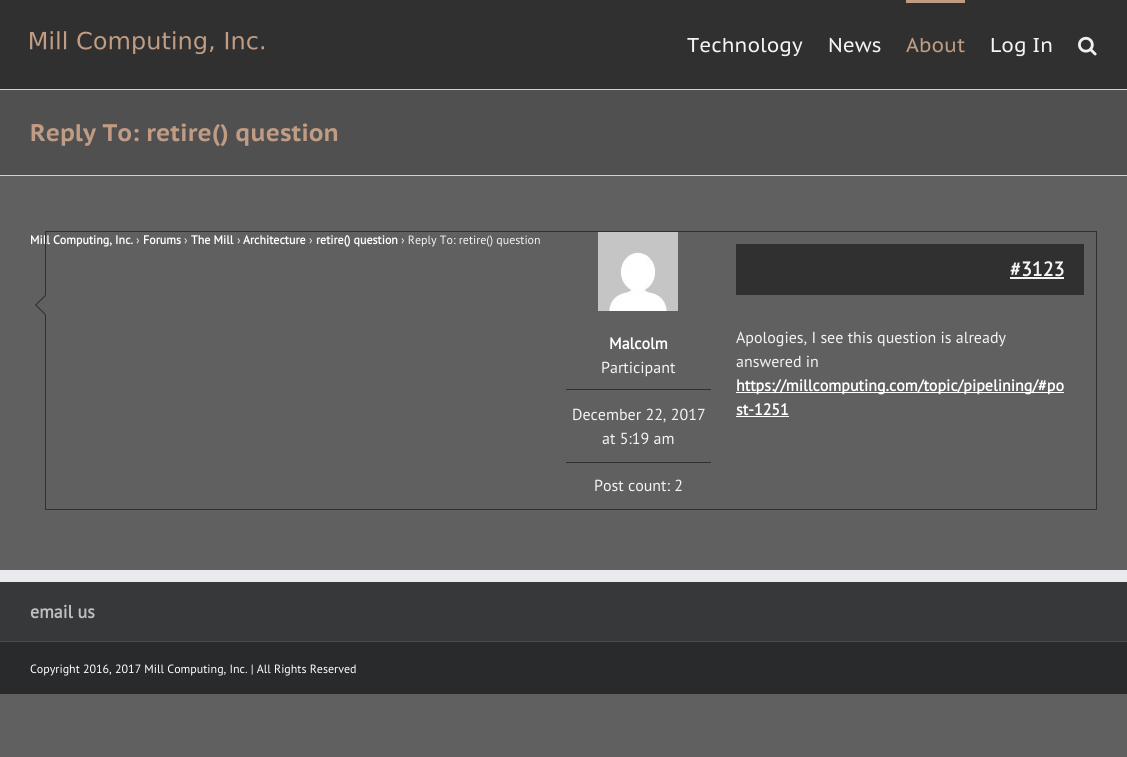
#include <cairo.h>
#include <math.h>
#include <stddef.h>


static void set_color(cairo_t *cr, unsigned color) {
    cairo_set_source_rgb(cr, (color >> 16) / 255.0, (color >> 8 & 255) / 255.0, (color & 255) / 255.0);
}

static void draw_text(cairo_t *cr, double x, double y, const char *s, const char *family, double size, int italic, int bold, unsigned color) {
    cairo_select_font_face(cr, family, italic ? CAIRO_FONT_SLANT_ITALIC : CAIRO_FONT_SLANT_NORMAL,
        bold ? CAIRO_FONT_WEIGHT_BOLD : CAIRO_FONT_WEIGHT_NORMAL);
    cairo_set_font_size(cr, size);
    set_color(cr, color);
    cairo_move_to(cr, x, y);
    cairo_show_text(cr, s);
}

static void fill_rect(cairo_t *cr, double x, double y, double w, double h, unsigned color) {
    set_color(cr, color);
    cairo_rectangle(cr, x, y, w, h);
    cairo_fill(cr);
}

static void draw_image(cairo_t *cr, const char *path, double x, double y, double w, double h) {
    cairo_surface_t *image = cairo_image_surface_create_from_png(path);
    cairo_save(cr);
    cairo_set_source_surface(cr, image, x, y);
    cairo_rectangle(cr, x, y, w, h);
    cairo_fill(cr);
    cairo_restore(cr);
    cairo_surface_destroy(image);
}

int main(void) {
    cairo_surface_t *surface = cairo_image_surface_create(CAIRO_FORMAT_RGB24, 1127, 757);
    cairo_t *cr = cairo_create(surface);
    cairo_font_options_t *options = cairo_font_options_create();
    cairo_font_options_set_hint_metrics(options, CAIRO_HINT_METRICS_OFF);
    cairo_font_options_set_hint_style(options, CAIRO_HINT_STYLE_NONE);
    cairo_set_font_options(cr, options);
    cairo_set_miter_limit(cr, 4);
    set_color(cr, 0x606060);
    cairo_paint(cr);
    fill_rect(cr, 0, 0, 1127, 89, 0x303030);
    draw_image(cr, "assets/img1.png", 30, 31, 234, 23);
    draw_text(cr, 687, 52, "Technology", "PT Sans Caption", 20, 0, 0, 0xF4F4F4);
    draw_text(cr, 828, 52, "News", "PT Sans Caption", 20, 0, 0, 0xF4F4F4);
    fill_rect(cr, 906, 0, 59, 3, 0xBF9C83);
    draw_text(cr, 906, 52, "About", "PT Sans Caption", 20, 0, 0, 0xBF9C83);
    draw_text(cr, 990, 52, "Log In", "PT Sans Caption", 20, 0, 0, 0xF4F4F4);
    draw_image(cr, "assets/img2.png", 1078, 36, 19, 20);
    fill_rect(cr, 0, 90, 1127, 85, 0x505050);
    fill_rect(cr, 0, 89, 1127, 1, 0xD2D3D4);
    fill_rect(cr, 0, 175, 1127, 1, 0xD2D3D4);
    draw_text(cr, 30, 141, "Reply To: retire() question", "PT Sans Caption", 24, 0, 1, 0xBF9C83);
    draw_text(cr, 30, 244, "Mill Computing, Inc.", "PT Sans", 12, 0, 1, 0xFFFFFF);
    draw_text(cr, 136, 244, "›", "PT Sans", 12, 0, 0, 0xF4F4F4);
    draw_text(cr, 143, 244, "Forums", "PT Sans", 12, 0, 1, 0xFFFFFF);
    draw_text(cr, 184, 244, "›", "PT Sans", 12, 0, 0, 0xF4F4F4);
    draw_text(cr, 191, 244, "The Mill", "PT Sans", 12, 0, 1, 0xFFFFFF);
    draw_text(cr, 237, 244, "›", "PT Sans", 12, 0, 0, 0xF4F4F4);
    draw_text(cr, 243, 244, "Architecture", "PT Sans", 12, 0, 1, 0xFFFFFF);
    draw_text(cr, 309, 244, "›", "PT Sans", 12, 0, 0, 0xF4F4F4);
    draw_text(cr, 316, 244, "retire() question", "PT Sans", 12, 0, 1, 0xFFFFFF);
    draw_text(cr, 401, 244, "› Reply To: retire() question", "PT Sans", 12, 0, 0, 0xF4F4F4);
    draw_image(cr, "assets/img3.png", 598, 232, 80, 79);
    draw_text(cr, 609, 349, "Malcolm", "PT Sans", 16, 0, 1, 0xFFFFFF);
    draw_text(cr, 601, 373, "Participant", "PT Sans", 16, 0, 0, 0xF4F4F4);
    fill_rect(cr, 566, 389, 145, 1, 0x303030);
    fill_rect(cr, 566, 462, 145, 1, 0x303030);
    draw_text(cr, 572, 420, "December 22, 2017", "PT Sans", 16, 0, 0, 0xF4F4F4);
    draw_text(cr, 602, 444, "at 5:19 am", "PT Sans", 16, 0, 0, 0xF4F4F4);
    draw_text(cr, 594, 491, "Post count: 2", "PT Sans", 16, 0, 0, 0xF4F4F4);
    cairo_rectangle(cr, 45.5, 231.5, 1051, 278);
    set_color(cr, 0x303030);
    cairo_set_line_width(cr, 1);
    cairo_stroke(cr);
    fill_rect(cr, 736, 244, 348, 51, 0x303030);
    draw_text(cr, 1010, 276, "#3123", "PT Sans", 20, 0, 1, 0xF4F4F4);
    fill_rect(cr, 1010, 277, 54, 2, 0xF4F4F4);
    set_color(cr, 0x606060);
    cairo_new_path(cr);
    cairo_move_to(cr, 45, 295);
    cairo_line_to(cr, 55, 305);
    cairo_line_to(cr, 45, 315);
    cairo_line_to(cr, 35, 305);
    cairo_close_path(cr);
    cairo_fill(cr);
    set_color(cr, 0x303030);
    cairo_new_path(cr);
    cairo_move_to(cr, 36, 304.5);
    cairo_line_to(cr, 45.5, 314);
    cairo_line_to(cr, 45, 315);
    cairo_line_to(cr, 35, 305);
    cairo_close_path(cr);
    cairo_fill(cr);
    cairo_new_path(cr);
    cairo_move_to(cr, 45, 295);
    cairo_line_to(cr, 45.5, 296);
    cairo_line_to(cr, 36, 305.5);
    cairo_line_to(cr, 35, 305);
    cairo_close_path(cr);
    cairo_fill(cr);
    draw_text(cr, 736, 343, "Apologies, I see this question is already", "PT Sans", 16, 0, 0, 0xF4F4F4);
    draw_text(cr, 736, 367, "answered in", "PT Sans", 16, 0, 0, 0xF4F4F4);
    fill_rect(cr, 736, 392, 328, 1, 0xFFFFFF);
    draw_text(cr, 736, 391, "https://millcomputing.com/topic/pipelining/#po", "PT Sans", 16, 0, 1, 0xFFFFFF);
    draw_text(cr, 736, 415, "st-1251", "PT Sans", 16, 0, 1, 0xFFFFFF);
    fill_rect(cr, 736, 416, 53, 1, 0xFFFFFF);
    fill_rect(cr, 0, 582, 1127, 59, 0x363839);
    fill_rect(cr, 0, 570, 1127, 12, 0xE9EAEE);
    draw_text(cr, 30, 618, "email us", "PT Sans", 18, 0, 1, 0xBFBFBF);
    fill_rect(cr, 0, 642, 1127, 52, 0x282A2B);
    fill_rect(cr, 0, 641, 1127, 1, 0x4B4C4D);
    draw_text(cr, 30, 673, "Copyright 2016, 2017 Mill Computing, Inc. | All Rights Reserved", "PT Sans", 12, 0, 0, 0xFFFFFF);
    cairo_surface_write_to_png(surface, "output.png");
    cairo_font_options_destroy(options);
    cairo_destroy(cr);
    cairo_surface_destroy(surface);
    return 0;
}
